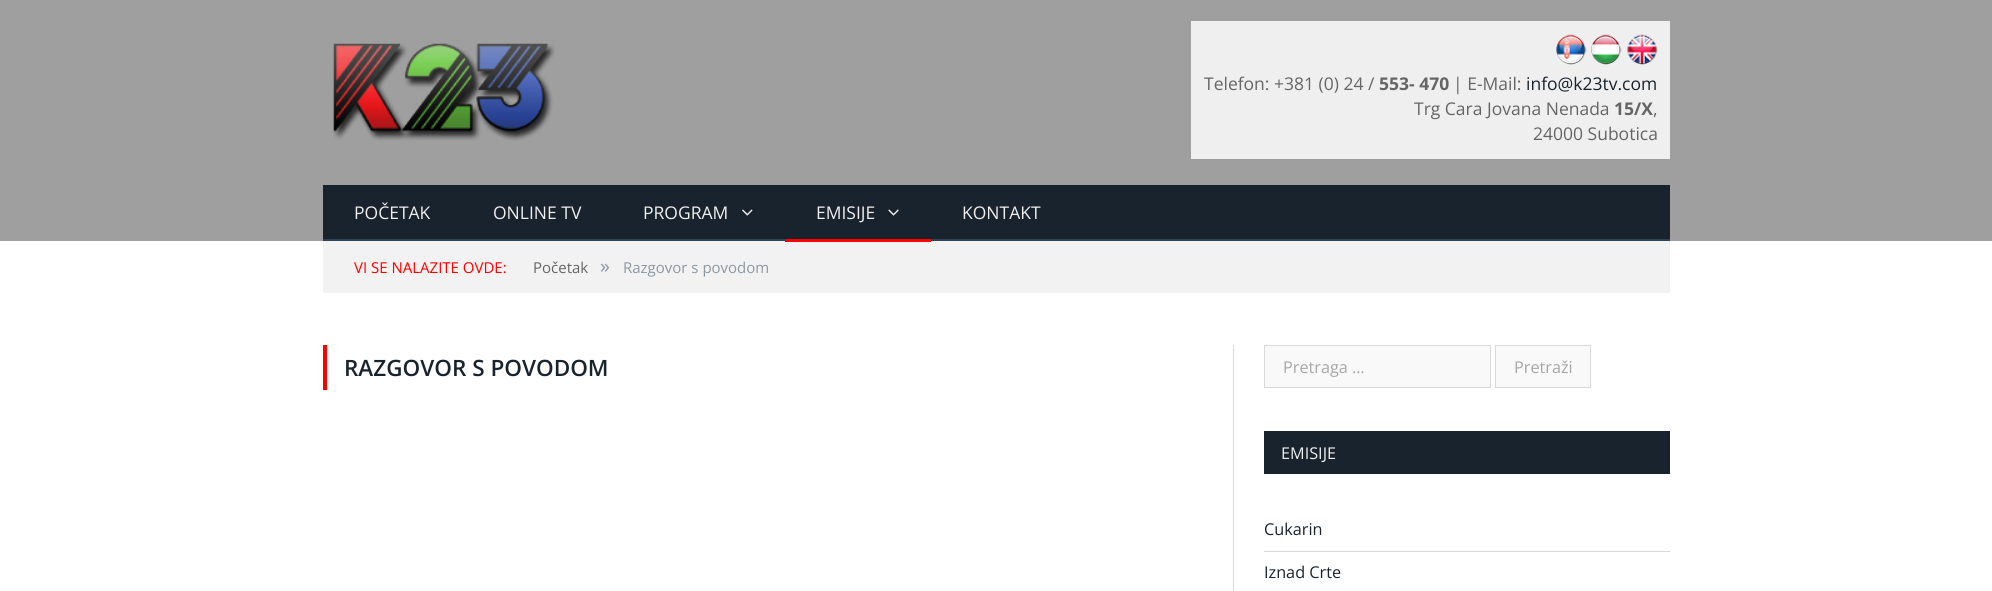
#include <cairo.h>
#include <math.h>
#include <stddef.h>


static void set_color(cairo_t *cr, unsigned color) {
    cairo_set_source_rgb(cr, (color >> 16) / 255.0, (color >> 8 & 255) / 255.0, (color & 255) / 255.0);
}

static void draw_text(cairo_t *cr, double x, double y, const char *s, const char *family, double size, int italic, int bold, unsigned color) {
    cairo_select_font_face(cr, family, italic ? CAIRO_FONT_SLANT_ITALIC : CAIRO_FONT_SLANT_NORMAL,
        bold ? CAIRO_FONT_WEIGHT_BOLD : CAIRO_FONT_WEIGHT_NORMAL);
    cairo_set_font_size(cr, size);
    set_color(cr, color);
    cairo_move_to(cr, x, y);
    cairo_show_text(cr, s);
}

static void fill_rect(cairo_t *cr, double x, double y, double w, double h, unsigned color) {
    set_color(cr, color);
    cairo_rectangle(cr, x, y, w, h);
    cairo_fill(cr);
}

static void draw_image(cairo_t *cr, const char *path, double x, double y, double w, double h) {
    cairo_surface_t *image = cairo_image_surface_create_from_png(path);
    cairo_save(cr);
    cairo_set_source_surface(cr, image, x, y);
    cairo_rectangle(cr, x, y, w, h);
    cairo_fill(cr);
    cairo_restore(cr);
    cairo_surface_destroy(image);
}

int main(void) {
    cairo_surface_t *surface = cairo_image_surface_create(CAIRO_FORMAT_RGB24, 1992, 591);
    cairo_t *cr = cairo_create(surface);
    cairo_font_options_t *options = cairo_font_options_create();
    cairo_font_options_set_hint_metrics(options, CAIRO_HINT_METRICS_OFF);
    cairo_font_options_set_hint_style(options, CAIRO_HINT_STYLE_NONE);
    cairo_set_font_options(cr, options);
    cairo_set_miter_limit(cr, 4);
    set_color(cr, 0xFFFFFF);
    cairo_paint(cr);
    fill_rect(cr, 0, 0, 1992, 241, 0x9F9F9F);
    draw_image(cr, "assets/img1.png", 333, 43, 222, 98);
    fill_rect(cr, 1191, 21, 479, 138, 0xEFEFEF);
    draw_image(cr, "assets/img2.png", 1556, 34, 31, 31);
    draw_image(cr, "assets/img3.png", 1591, 34, 31, 31);
    draw_image(cr, "assets/img4.png", 1627, 34, 31, 31);
    draw_text(cr, 1204, 90, "Telefon: +381 (0) 24 /", "Open Sans", 17.5, 0, 0, 0x656565);
    draw_text(cr, 1379, 90, "553- 470", "Open Sans", 17.5, 0, 1, 0x656565);
    draw_text(cr, 1453, 90, "| E-Mail:", "Open Sans", 17.5, 0, 0, 0x656565);
    draw_text(cr, 1526, 90, "info@k23tv.com", "Open Sans", 17.5, 0, 0, 0x19232D);
    draw_text(cr, 1414, 115, "Trg Cara Jovana Nenada", "Open Sans", 17.5, 0, 0, 0x656565);
    draw_text(cr, 1614, 115, "15/X", "Open Sans", 17.5, 0, 1, 0x656565);
    draw_text(cr, 1653, 115, ",", "Open Sans", 17.5, 0, 0, 0x656565);
    draw_text(cr, 1533, 140, "24000 Subotica", "Open Sans", 17.5, 0, 0, 0x656565);
    fill_rect(cr, 323, 185, 1347, 54, 0x19232D);
    fill_rect(cr, 323, 239, 1347, 2, 0x2F4154);
    draw_text(cr, 354, 219, "POČETAK", "Open Sans", 17.5, 0, 0, 0xEFEFEF);
    draw_text(cr, 493, 219, "ONLINE TV", "Open Sans", 17.5, 0, 0, 0xEFEFEF);
    draw_text(cr, 643, 219, "PROGRAM", "Open Sans", 17.5, 0, 0, 0xEFEFEF);
    draw_image(cr, "assets/img5.png", 742, 209, 11, 7);
    fill_rect(cr, 323, 241, 1347, 52, 0xF2F2F2);
    fill_rect(cr, 785, 239, 146, 3, 0xFF0000);
    draw_text(cr, 816, 219, "EMISIJE", "Open Sans", 17.5, 0, 0, 0xEFEFEF);
    draw_image(cr, "assets/img6.png", 888, 209, 11, 7);
    draw_text(cr, 962, 219, "KONTAKT", "Open Sans", 17.5, 0, 0, 0xEFEFEF);
    draw_text(cr, 354, 273, "VI SE NALAZITE OVDE:", "Open Sans", 15, 0, 0, 0xFF0000);
    draw_text(cr, 533, 273, "Početak", "Open Sans", 15, 0, 0, 0x656565);
    draw_text(cr, 600, 273, "»", "Open Sans", 20, 0, 0, 0x8D97A1);
    draw_text(cr, 623, 273, "Razgovor s povodom", "Open Sans", 15, 0, 0, 0x8D97A1);
    fill_rect(cr, 323, 345, 4, 45, 0xFF0000);
    draw_text(cr, 344, 376, "RAZGOVOR S POVODOM", "Open Sans SemiBold", 22.5, 0, 0, 0x19232D);
    fill_rect(cr, 1233, 345, 1, 246, 0xD9D9D9);
    set_color(cr, 0xF9F9F9);
    cairo_rectangle(cr, 1264.5, 345.5, 226, 42);
    cairo_fill_preserve(cr);
    set_color(cr, 0xD9D9D9);
    cairo_set_line_width(cr, 1);
    cairo_stroke(cr);
    draw_text(cr, 1283, 373, "Pretraga …", "Open Sans", 16.25, 0, 0, 0xA6A6A6);
    set_color(cr, 0xF9F9F9);
    cairo_rectangle(cr, 1495.5, 345.5, 95, 42);
    cairo_fill_preserve(cr);
    set_color(cr, 0xD9D9D9);
    cairo_stroke(cr);
    draw_text(cr, 1514, 373, "Pretraži", "Open Sans", 16.25, 0, 0, 0xA6A6A6);
    fill_rect(cr, 1264, 431, 406, 43, 0x19232D);
    draw_text(cr, 1281, 459, "EMISIJE", "Open Sans", 16.25, 0, 0, 0xEFEFEF);
    fill_rect(cr, 1264, 551, 406, 1, 0xD9D9D9);
    draw_text(cr, 1264, 535, "Cukarin", "Open Sans", 16.25, 0, 0, 0x19232D);
    draw_text(cr, 1264, 578, "Iznad Crte", "Open Sans", 16.25, 0, 0, 0x19232D);
    cairo_surface_write_to_png(surface, "output.png");
    cairo_font_options_destroy(options);
    cairo_destroy(cr);
    cairo_surface_destroy(surface);
    return 0;
}
